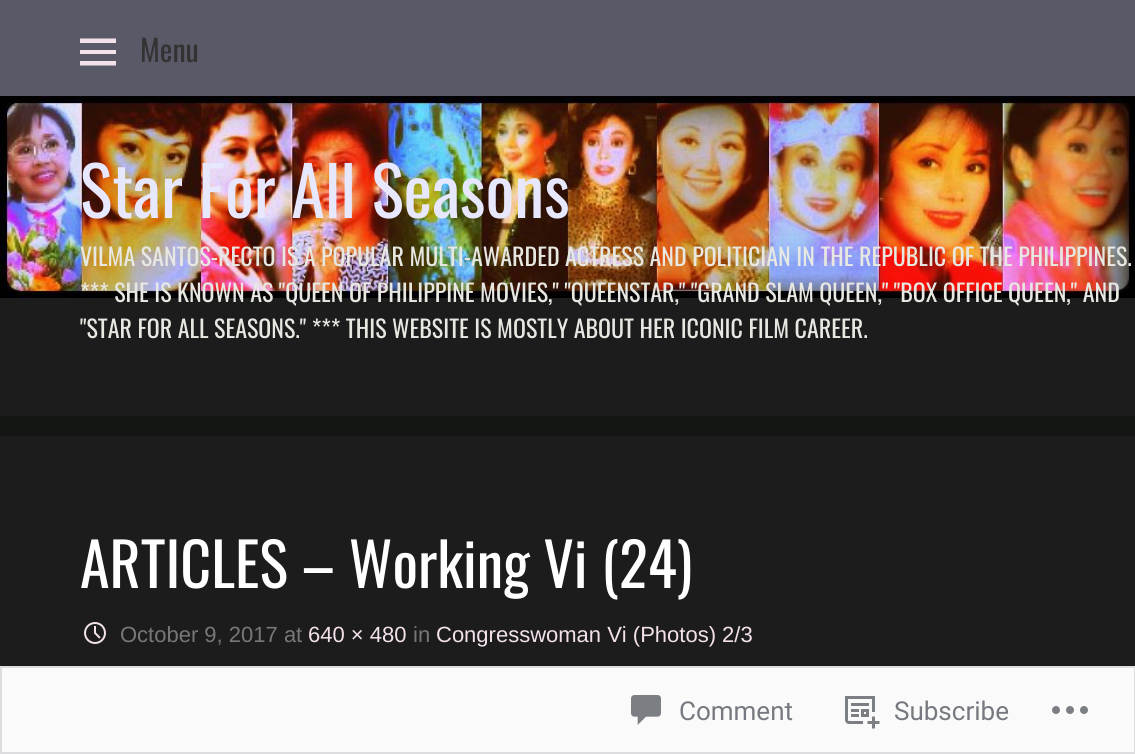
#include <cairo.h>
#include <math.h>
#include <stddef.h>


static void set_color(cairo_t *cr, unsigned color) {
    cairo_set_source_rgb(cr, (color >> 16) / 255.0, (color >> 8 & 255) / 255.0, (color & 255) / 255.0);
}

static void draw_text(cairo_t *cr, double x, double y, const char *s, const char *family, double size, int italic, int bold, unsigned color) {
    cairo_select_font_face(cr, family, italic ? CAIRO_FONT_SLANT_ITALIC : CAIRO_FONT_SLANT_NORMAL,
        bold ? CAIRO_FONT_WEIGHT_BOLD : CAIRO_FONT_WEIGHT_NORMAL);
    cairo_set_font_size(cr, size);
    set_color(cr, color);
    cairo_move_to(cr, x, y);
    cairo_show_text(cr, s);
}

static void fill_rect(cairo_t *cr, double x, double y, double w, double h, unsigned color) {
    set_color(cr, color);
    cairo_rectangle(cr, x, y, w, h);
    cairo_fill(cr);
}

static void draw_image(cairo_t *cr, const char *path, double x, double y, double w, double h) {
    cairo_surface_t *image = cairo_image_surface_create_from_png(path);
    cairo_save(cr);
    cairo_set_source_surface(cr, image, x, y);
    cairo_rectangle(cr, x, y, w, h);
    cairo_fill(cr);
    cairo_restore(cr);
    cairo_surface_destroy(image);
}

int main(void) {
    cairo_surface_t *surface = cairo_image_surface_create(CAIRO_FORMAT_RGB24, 1135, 754);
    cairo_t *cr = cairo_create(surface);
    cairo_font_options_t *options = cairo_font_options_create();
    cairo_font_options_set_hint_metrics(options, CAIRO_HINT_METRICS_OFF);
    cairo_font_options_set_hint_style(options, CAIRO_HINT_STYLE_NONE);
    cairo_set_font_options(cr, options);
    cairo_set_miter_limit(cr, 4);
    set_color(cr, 0x131512);
    cairo_paint(cr);
    fill_rect(cr, 0, 0, 1135, 96, 0x595968);
    set_color(cr, 0xF3E1EB);
    cairo_new_path(cr);
    cairo_move_to(cr, 80, 65.5);
    cairo_line_to(cr, 80, 61);
    cairo_line_to(cr, 116, 61);
    cairo_line_to(cr, 116, 65.5);
    cairo_close_path(cr);
    cairo_move_to(cr, 80, 54);
    cairo_line_to(cr, 80, 50);
    cairo_line_to(cr, 116, 50);
    cairo_line_to(cr, 116, 54);
    cairo_close_path(cr);
    cairo_move_to(cr, 80, 43);
    cairo_line_to(cr, 80, 38.5);
    cairo_line_to(cr, 116, 38.5);
    cairo_line_to(cr, 116, 43);
    cairo_close_path(cr);
    cairo_fill(cr);
    draw_text(cr, 140, 62, "Menu", "Oswald", 30, 0, 0, 0x333333);
    fill_rect(cr, 0, 298, 1135, 118, 0x1C1C1C);
    draw_image(cr, "assets/img1.png", 0, 96, 1135, 202);
    draw_text(cr, 80, 218, "Star For All Seasons", "Oswald", 68, 0, 0, 0xE7E7FD);
    draw_text(cr, 80, 266, "VILMA SANTOS-RECTO IS A POPULAR MULTI-AWARDED ACTRESS AND POLITICIAN IN THE REPUBLIC OF THE PHILIPPINES.", "Oswald", 24, 0, 0, 0xE8E8E2);
    draw_text(cr, 80, 302, "*** SHE IS KNOWN AS \"QUEEN OF PHILIPPINE MOVIES,\" \"QUEENSTAR,\" \"GRAND SLAM QUEEN,\" \"BOX OFFICE QUEEN,\" AND", "Oswald", 24, 0, 0, 0xE8E8E2);
    draw_text(cr, 80, 338, "\"STAR FOR ALL SEASONS.\" *** THIS WEBSITE IS MOSTLY ABOUT HER ICONIC FILM CAREER.", "Oswald", 24, 0, 0, 0xE8E8E2);
    fill_rect(cr, 0, 436, 1135, 230, 0x1C1C1C);
    draw_text(cr, 80, 588, "ARTICLES – Working Vi (24)", "Oswald", 60, 0, 0, 0xFFFFFF);
    draw_image(cr, "assets/img2.png", 84, 622, 22, 22);
    draw_text(cr, 120, 642, "October 9, 2017 at", "Arimo", 22, 0, 0, 0x777777);
    draw_text(cr, 308, 642, "640 × 480", "Arimo", 22, 0, 0, 0xF3E1EB);
    draw_text(cr, 413, 642, "in", "Arimo", 22, 0, 0, 0x777777);
    draw_text(cr, 436, 642, "Congresswoman Vi (Photos) 2/3", "Arimo", 22, 0, 0, 0xF3E1EB);
    set_color(cr, 0xFAFAFA);
    cairo_rectangle(cr, 1, 667, 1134, 86);
    cairo_fill_preserve(cr);
    set_color(cr, 0xDDDDDF);
    cairo_stroke(cr);
    draw_image(cr, "assets/img3.png", 631, 695, 30, 30);
    draw_text(cr, 679, 720, "Comment", "Roboto", 26, 0, 0, 0x767A80);
    draw_image(cr, "assets/img4.png", 845, 696, 35, 33);
    draw_text(cr, 894, 720, "Subscribe", "Roboto", 26, 0, 0, 0x767A80);
    draw_image(cr, "assets/img5.png", 1052, 706, 36, 8);
    cairo_surface_write_to_png(surface, "output.png");
    cairo_font_options_destroy(options);
    cairo_destroy(cr);
    cairo_surface_destroy(surface);
    return 0;
}
